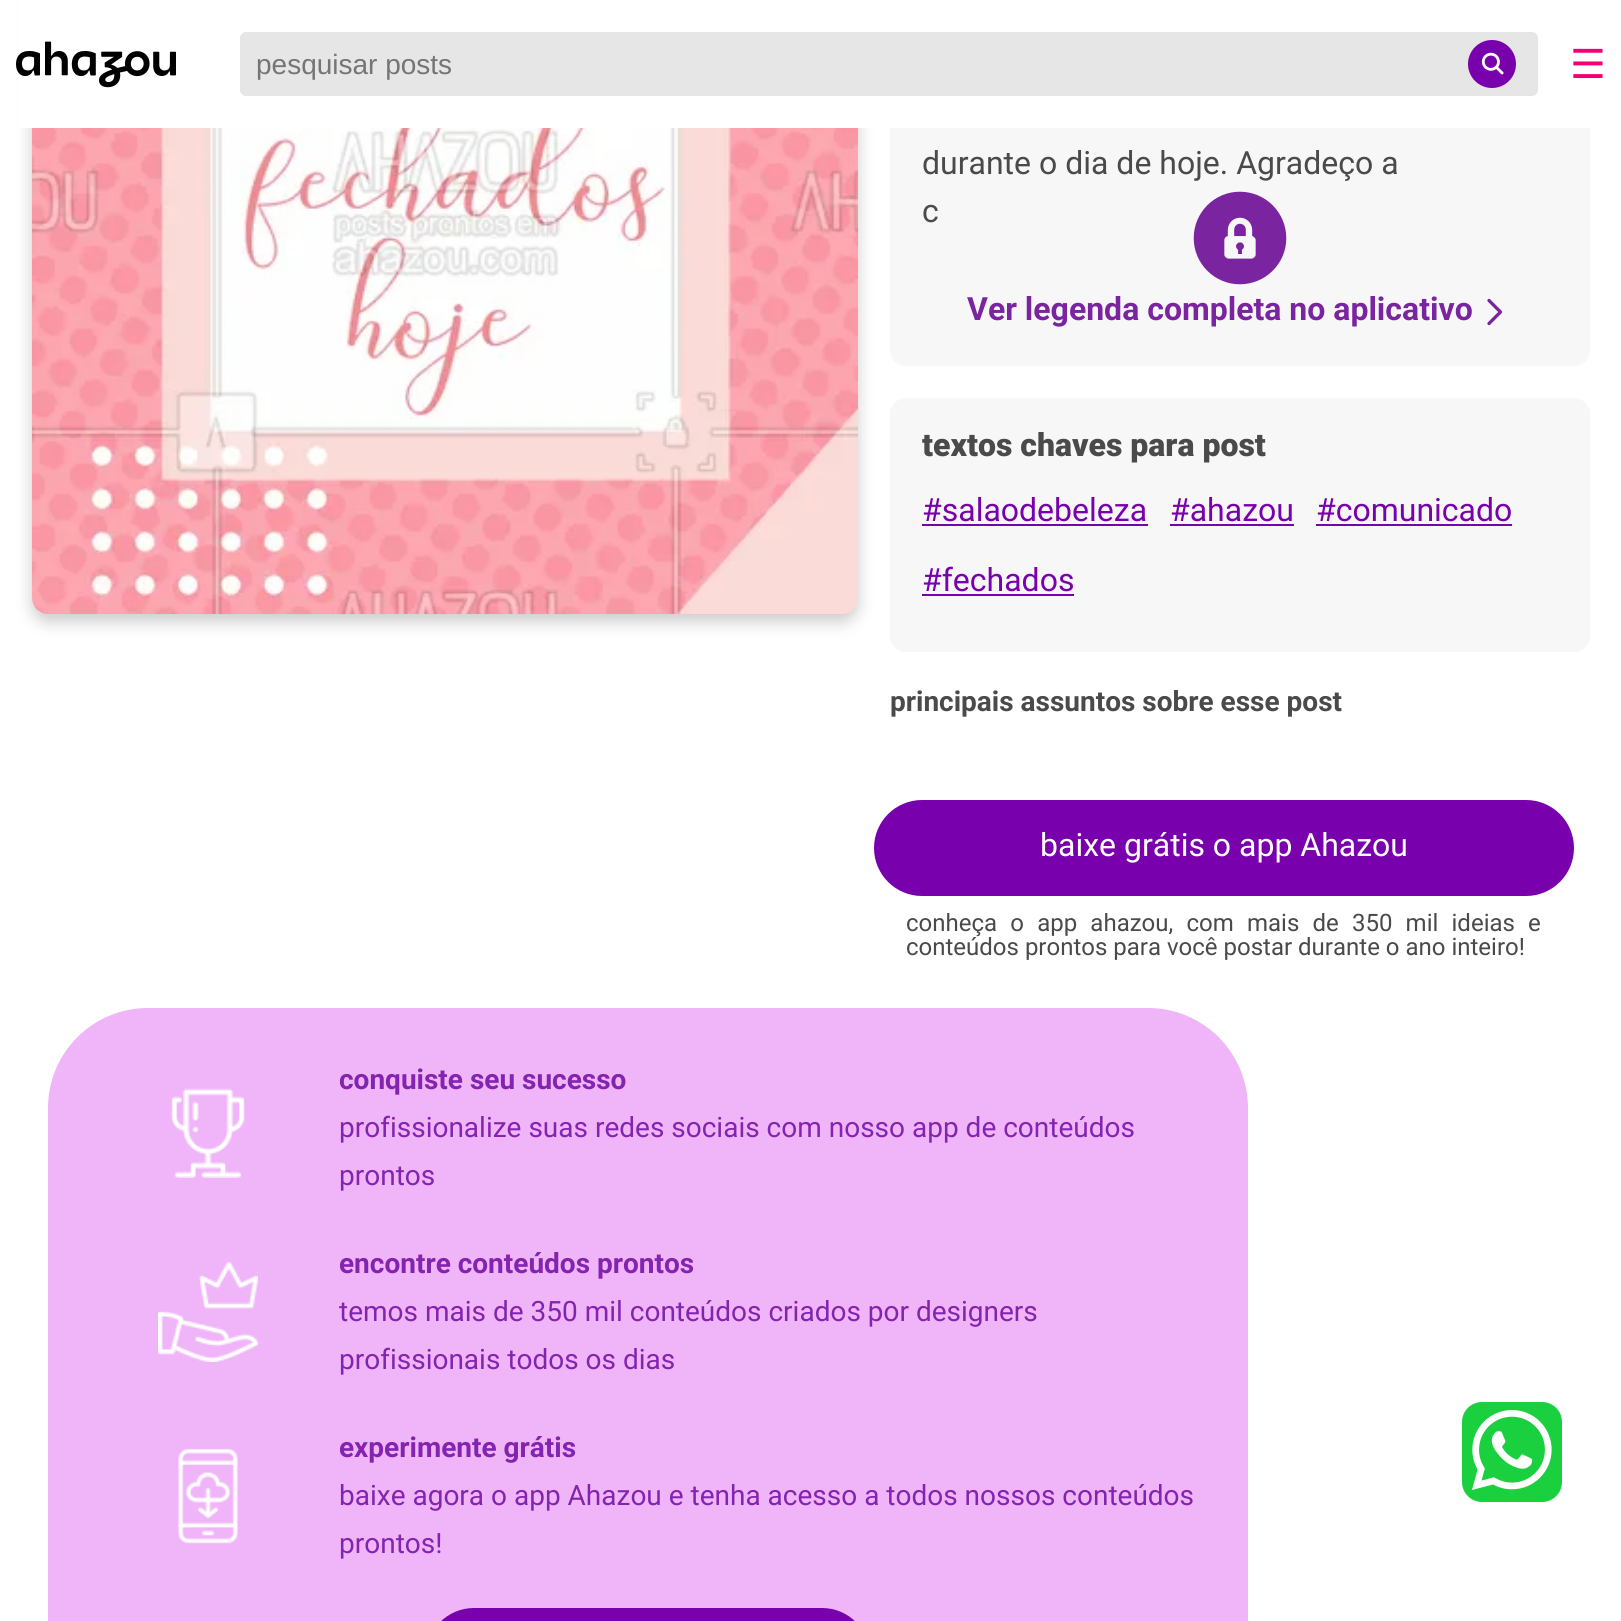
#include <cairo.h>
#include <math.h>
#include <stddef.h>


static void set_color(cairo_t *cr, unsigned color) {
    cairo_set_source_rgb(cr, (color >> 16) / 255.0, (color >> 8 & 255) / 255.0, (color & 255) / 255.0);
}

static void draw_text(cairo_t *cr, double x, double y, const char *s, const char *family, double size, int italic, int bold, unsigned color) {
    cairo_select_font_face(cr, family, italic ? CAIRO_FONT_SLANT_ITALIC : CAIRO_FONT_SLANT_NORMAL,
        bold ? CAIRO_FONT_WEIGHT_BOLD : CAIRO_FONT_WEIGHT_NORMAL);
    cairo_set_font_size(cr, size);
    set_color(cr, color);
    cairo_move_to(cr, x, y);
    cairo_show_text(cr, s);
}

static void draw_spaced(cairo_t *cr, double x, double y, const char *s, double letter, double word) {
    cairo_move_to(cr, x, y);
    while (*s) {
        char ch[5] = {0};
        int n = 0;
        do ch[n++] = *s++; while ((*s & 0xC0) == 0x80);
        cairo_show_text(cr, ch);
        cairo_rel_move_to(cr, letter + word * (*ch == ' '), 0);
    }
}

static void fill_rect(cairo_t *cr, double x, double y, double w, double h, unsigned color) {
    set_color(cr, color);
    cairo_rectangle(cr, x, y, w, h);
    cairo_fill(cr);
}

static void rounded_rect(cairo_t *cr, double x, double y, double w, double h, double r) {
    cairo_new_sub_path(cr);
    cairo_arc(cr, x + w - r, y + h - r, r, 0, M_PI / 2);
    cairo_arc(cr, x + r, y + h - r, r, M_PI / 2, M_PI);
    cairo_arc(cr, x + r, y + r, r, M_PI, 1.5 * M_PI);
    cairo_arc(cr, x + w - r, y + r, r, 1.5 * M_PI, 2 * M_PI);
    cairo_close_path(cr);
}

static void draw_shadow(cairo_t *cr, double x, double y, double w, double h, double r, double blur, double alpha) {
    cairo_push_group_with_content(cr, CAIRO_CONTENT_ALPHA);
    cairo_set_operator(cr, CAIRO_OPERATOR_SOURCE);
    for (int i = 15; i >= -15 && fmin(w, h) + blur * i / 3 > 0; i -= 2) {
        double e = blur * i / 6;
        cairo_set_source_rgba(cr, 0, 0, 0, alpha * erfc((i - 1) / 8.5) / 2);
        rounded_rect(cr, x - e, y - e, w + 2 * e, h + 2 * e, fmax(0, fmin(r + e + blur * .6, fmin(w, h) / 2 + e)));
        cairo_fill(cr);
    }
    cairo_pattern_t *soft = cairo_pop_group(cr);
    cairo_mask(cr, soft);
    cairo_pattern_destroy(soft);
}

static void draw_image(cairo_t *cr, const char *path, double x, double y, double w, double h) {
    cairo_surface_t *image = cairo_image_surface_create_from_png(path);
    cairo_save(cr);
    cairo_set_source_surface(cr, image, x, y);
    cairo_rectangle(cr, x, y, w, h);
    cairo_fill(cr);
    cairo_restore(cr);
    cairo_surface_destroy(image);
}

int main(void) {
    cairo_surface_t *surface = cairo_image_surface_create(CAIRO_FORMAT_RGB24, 1621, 1621);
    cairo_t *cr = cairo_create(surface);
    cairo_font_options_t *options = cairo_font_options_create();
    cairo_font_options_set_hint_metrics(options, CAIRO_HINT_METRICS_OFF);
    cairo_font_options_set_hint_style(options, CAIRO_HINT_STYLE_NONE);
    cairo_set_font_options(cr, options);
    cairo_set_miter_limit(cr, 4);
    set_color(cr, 0xFFFFFF);
    cairo_paint(cr);
    set_color(cr, 0x000000);
    draw_shadow(cr, 32, -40, 826, 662, 16, 8, 0.2);
    set_color(cr, 0xF8F7F8);
    rounded_rect(cr, 890, 12, 700, 354, 16);
    cairo_fill(cr);
    draw_image(cr, "assets/img3.png", 32, 128, 826, 486);
    cairo_save(cr);
    rounded_rect(cr, 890, 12, 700, 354, 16);
    cairo_clip(cr);
    set_color(cr, 0xF8F7F8);
    draw_shadow(cr, 922, 158, 636, 100, 0, 26, 0.93);
    cairo_restore(cr);
    fill_rect(cr, 19, 0, 1571, 128, 0xFFFFFF);
    draw_image(cr, "assets/img1.png", 16, 41, 160, 47);
    set_color(cr, 0xE6E6E6);
    rounded_rect(cr, 240, 32, 1298, 64, 6);
    cairo_fill(cr);
    draw_text(cr, 256, 74, "pesquisar posts", "Liberation Sans", 28, 0, 0, 0x757575);
    set_color(cr, 0x7900AD);
    cairo_new_path(cr);
    cairo_arc(cr, 1492, 64, 24, 0, 2 * M_PI);
    cairo_fill(cr);
    draw_image(cr, "assets/img2.png", 1481, 52, 23, 23);
    draw_text(cr, 1570, 78, "☰", "DejaVu Sans", 40, 0, 0, 0xF50072);
    draw_text(cr, 922, 174, "durante o dia de hoje. Agradeço a", "Roboto", 32, 0, 0, 0x4A4A4A);
    draw_text(cr, 922, 222, "c", "Roboto", 32, 0, 0, 0x4A4A4A);
    draw_image(cr, "assets/img4.png", 1193, 191, 94, 94);
    draw_text(cr, 967, 320, "Ver legenda completa no aplicativo", "Roboto", 32, 0, 1, 0x7A24A0);
    cairo_new_path(cr);
    cairo_move_to(cr, 1489, 300.5);
    cairo_line_to(cr, 1500.5, 312);
    cairo_line_to(cr, 1489, 323.5);
    cairo_set_line_width(cr, 3.3);
    cairo_set_line_cap(cr, CAIRO_LINE_CAP_ROUND);
    cairo_set_line_join(cr, CAIRO_LINE_JOIN_ROUND);
    cairo_stroke(cr);
    set_color(cr, 0xF8F7F8);
    rounded_rect(cr, 890, 398, 700, 254, 16);
    cairo_fill(cr);
    draw_text(cr, 922, 456, "textos chaves para post", "Roboto Black", 32, 0, 0, 0x4A4A4A);
    draw_text(cr, 922, 521, "#salaodebeleza", "Roboto", 32, 0, 0, 0x7900AD);
    fill_rect(cr, 922, 524, 226, 2, 0x7900AD);
    draw_text(cr, 1170, 521, "#ahazou", "Roboto", 32, 0, 0, 0x7900AD);
    fill_rect(cr, 1170, 524, 124, 2, 0x7900AD);
    draw_text(cr, 1316, 521, "#comunicado", "Roboto", 32, 0, 0, 0x7900AD);
    fill_rect(cr, 1316, 524, 196, 2, 0x7900AD);
    draw_text(cr, 922, 591, "#fechados", "Roboto", 32, 0, 0, 0x7900AD);
    fill_rect(cr, 922, 594, 152, 2, 0x7900AD);
    draw_text(cr, 890, 711, "principais assuntos sobre esse post", "Roboto", 28, 0, 1, 0x4A4A4A);
    set_color(cr, 0x7900AD);
    rounded_rect(cr, 874, 800, 700, 96, 48);
    cairo_fill(cr);
    draw_text(cr, 1040, 856, "baixe grátis o app Ahazou", "Roboto", 32, 0, 0, 0xFFFFFF);
    cairo_set_font_size(cr, 24);
    set_color(cr, 0x4A4A4A);
    draw_spaced(cr, 906, 931, "conheça o app ahazou, com mais de 350 mil ideias e", 0, 7.25);
    draw_text(cr, 906, 955, "conteúdos prontos para você postar durante o ano inteiro!", "Roboto", 24, 0, 0, 0x4A4A4A);
    set_color(cr, 0xF0B4F9);
    rounded_rect(cr, 48, 1008, 1200, 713, 100);
    cairo_fill(cr);
    draw_image(cr, "assets/img5.png", 171, 1088, 74, 90);
    draw_text(cr, 339, 1089, "conquiste seu sucesso", "Roboto", 28, 0, 1, 0x8224AF);
    draw_text(cr, 339, 1137, "profissionalize suas redes sociais com nosso app de conteúdos", "Roboto", 28, 0, 0, 0x8224AF);
    draw_text(cr, 339, 1185, "prontos", "Roboto", 28, 0, 0, 0x8224AF);
    draw_image(cr, "assets/img6.png", 158, 1262, 100, 100);
    draw_text(cr, 339, 1273, "encontre conteúdos prontos", "Roboto", 28, 0, 1, 0x8224AF);
    draw_text(cr, 339, 1321, "temos mais de 350 mil conteúdos criados por designers", "Roboto", 28, 0, 0, 0x8224AF);
    draw_text(cr, 339, 1369, "profissionais todos os dias", "Roboto", 28, 0, 0, 0x8224AF);
    draw_image(cr, "assets/img7.png", 178, 1448, 60, 96);
    draw_text(cr, 339, 1457, "experimente grátis", "Roboto", 28, 0, 1, 0x8224AF);
    draw_text(cr, 339, 1505, "baixe agora o app Ahazou e tenha acesso a todos nossos conteúdos", "Roboto", 28, 0, 0, 0x8224AF);
    draw_text(cr, 339, 1553, "prontos!", "Roboto", 28, 0, 0, 0x8224AF);
    set_color(cr, 0x7900AD);
    rounded_rect(cr, 426, 1608, 444, 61, 48);
    cairo_fill(cr);
    set_color(cr, 0x1AD03F);
    rounded_rect(cr, 1462, 1402, 100, 100, 20);
    cairo_fill(cr);
    draw_image(cr, "assets/img8.png", 1472, 1410, 80, 80);
    cairo_surface_write_to_png(surface, "output.png");
    cairo_font_options_destroy(options);
    cairo_destroy(cr);
    cairo_surface_destroy(surface);
    return 0;
}
